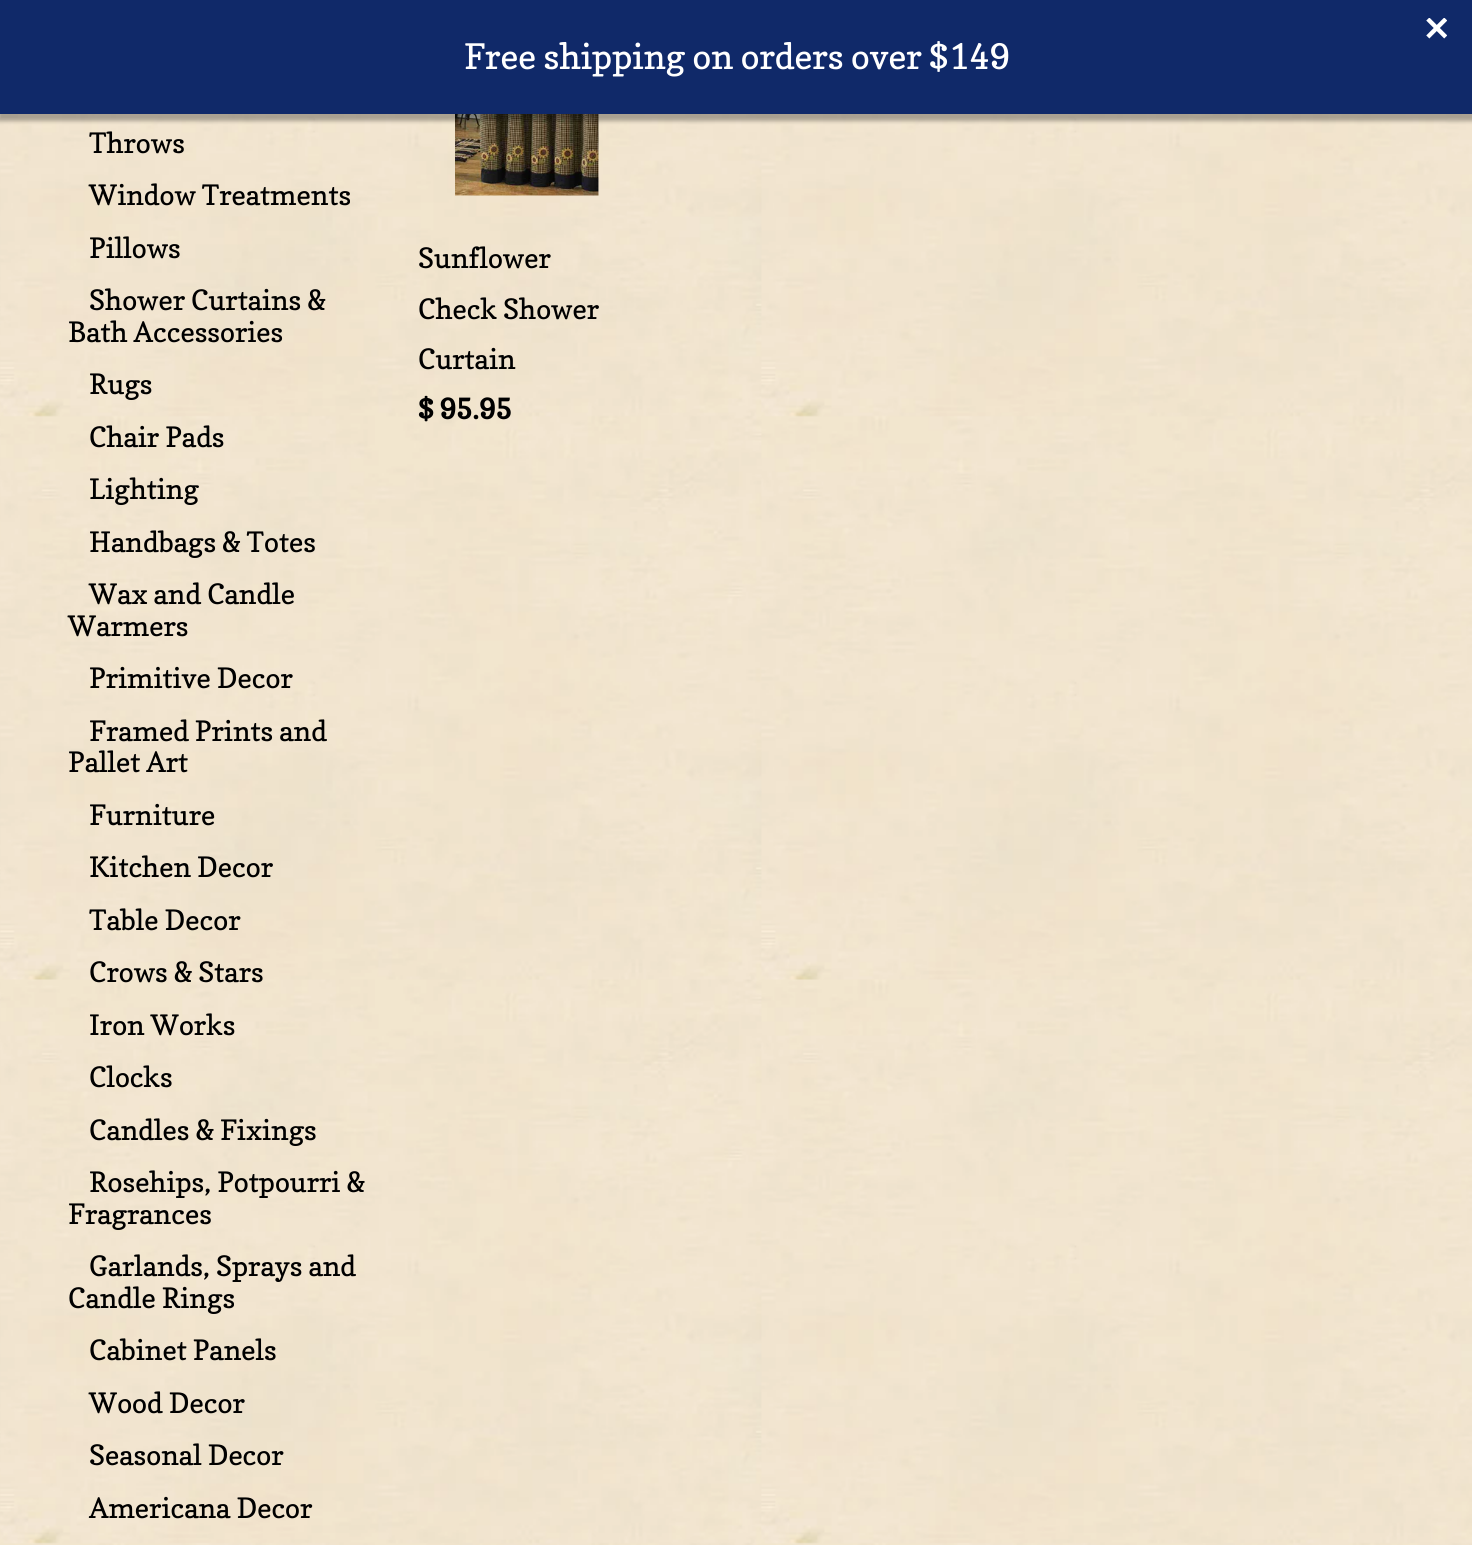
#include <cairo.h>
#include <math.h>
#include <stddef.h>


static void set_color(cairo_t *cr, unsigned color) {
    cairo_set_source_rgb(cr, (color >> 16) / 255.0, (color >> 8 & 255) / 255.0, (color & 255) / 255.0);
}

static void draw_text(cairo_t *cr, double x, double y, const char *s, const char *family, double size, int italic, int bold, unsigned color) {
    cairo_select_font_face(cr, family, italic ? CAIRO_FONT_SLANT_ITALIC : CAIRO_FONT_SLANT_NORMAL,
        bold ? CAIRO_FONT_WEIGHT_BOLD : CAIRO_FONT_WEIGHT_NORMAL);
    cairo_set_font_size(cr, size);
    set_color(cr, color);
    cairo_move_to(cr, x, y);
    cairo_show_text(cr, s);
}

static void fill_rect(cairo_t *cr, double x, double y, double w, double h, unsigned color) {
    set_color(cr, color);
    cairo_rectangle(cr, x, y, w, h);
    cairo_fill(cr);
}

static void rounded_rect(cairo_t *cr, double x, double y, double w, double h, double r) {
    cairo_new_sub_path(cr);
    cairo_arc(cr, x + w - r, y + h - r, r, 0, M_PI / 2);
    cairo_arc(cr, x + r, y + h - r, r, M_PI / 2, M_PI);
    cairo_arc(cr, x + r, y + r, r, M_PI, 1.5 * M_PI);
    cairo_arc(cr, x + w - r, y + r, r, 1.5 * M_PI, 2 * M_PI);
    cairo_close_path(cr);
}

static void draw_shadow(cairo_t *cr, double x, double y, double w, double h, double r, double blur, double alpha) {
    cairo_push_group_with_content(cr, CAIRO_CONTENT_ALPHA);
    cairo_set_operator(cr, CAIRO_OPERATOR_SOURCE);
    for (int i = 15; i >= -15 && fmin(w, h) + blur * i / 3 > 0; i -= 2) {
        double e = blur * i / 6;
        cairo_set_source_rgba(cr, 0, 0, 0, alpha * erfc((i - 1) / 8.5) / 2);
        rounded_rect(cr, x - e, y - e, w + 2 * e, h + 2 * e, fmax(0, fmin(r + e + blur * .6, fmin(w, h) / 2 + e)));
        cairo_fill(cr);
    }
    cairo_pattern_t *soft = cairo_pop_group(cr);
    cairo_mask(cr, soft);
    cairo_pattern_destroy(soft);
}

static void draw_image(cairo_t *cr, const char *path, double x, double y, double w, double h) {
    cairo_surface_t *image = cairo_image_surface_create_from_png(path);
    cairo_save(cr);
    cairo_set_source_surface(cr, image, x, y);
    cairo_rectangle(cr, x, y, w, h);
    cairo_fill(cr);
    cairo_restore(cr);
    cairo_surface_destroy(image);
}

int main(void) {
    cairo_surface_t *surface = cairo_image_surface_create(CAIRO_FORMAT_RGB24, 1472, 1545);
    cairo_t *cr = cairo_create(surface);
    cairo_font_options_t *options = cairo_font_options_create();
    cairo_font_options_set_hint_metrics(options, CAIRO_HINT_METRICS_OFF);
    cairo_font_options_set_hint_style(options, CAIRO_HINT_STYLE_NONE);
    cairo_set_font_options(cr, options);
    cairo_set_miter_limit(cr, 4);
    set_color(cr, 0xFFFFFF);
    cairo_paint(cr);
    draw_image(cr, "assets/img1.png", 0, 114, 1472, 1431);
    draw_image(cr, "assets/img3.png", 455, 114, 144, 82);
    set_color(cr, 0x000000);
    draw_shadow(cr, -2, 4, 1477, 117, 0, 2, 0.3);
    fill_rect(cr, 0, 0, 1472, 114, 0x102969);
    draw_image(cr, "assets/img2.png", 1426, 18, 21, 21);
    draw_text(cr, 464, 69, "Free shipping on orders over $149", "Copse", 35, 0, 0, 0xFFFFFF);
    draw_text(cr, 89, 153, "Throws", "Copse", 28, 0, 0, 0x000000);
    draw_text(cr, 89, 205, "Window Treatments", "Copse", 28, 0, 0, 0x000000);
    draw_text(cr, 89, 258, "Pillows", "Copse", 28, 0, 0, 0x000000);
    draw_text(cr, 89, 310, "Shower Curtains &", "Copse", 28, 0, 0, 0x000000);
    draw_text(cr, 68, 342, "Bath Accessories", "Copse", 28, 0, 0, 0x000000);
    draw_text(cr, 89, 394, "Rugs", "Copse", 28, 0, 0, 0x000000);
    draw_text(cr, 89, 447, "Chair Pads", "Copse", 28, 0, 0, 0x000000);
    draw_text(cr, 89, 499, "Lighting", "Copse", 28, 0, 0, 0x000000);
    draw_text(cr, 89, 552, "Handbags & Totes", "Copse", 28, 0, 0, 0x000000);
    draw_text(cr, 89, 604, "Wax and Candle", "Copse", 28, 0, 0, 0x000000);
    draw_text(cr, 68, 636, "Warmers", "Copse", 28, 0, 0, 0x000000);
    draw_text(cr, 89, 688, "Primitive Decor", "Copse", 28, 0, 0, 0x000000);
    draw_text(cr, 89, 741, "Framed Prints and", "Copse", 28, 0, 0, 0x000000);
    draw_text(cr, 68, 772, "Pallet Art", "Copse", 28, 0, 0, 0x000000);
    draw_text(cr, 89, 825, "Furniture", "Copse", 28, 0, 0, 0x000000);
    draw_text(cr, 89, 877, "Kitchen Decor", "Copse", 28, 0, 0, 0x000000);
    draw_text(cr, 89, 930, "Table Decor", "Copse", 28, 0, 0, 0x000000);
    draw_text(cr, 89, 982, "Crows & Stars", "Copse", 28, 0, 0, 0x000000);
    draw_text(cr, 89, 1035, "Iron Works", "Copse", 28, 0, 0, 0x000000);
    draw_text(cr, 89, 1087, "Clocks", "Copse", 28, 0, 0, 0x000000);
    draw_text(cr, 89, 1140, "Candles & Fixings", "Copse", 28, 0, 0, 0x000000);
    draw_text(cr, 89, 1192, "Rosehips, Potpourri &", "Copse", 28, 0, 0, 0x000000);
    draw_text(cr, 68, 1224, "Fragrances", "Copse", 28, 0, 0, 0x000000);
    draw_text(cr, 89, 1276, "Garlands, Sprays and", "Copse", 28, 0, 0, 0x000000);
    draw_text(cr, 68, 1308, "Candle Rings", "Copse", 28, 0, 0, 0x000000);
    draw_text(cr, 89, 1360, "Cabinet Panels", "Copse", 28, 0, 0, 0x000000);
    draw_text(cr, 89, 1413, "Wood Decor", "Copse", 28, 0, 0, 0x000000);
    draw_text(cr, 89, 1465, "Seasonal Decor", "Copse", 28, 0, 0, 0x000000);
    draw_text(cr, 89, 1518, "Americana Decor", "Copse", 28, 0, 0, 0x000000);
    draw_text(cr, 418, 268, "Sunflower", "Copse", 28, 0, 0, 0x000000);
    draw_text(cr, 418, 319, "Check Shower", "Copse", 28, 0, 0, 0x000000);
    draw_text(cr, 418, 369, "Curtain", "Copse", 28, 0, 0, 0x000000);
    draw_text(cr, 418, 419, "$ 95.95", "Copse", 28, 0, 1, 0x000000);
    cairo_surface_write_to_png(surface, "output.png");
    cairo_font_options_destroy(options);
    cairo_destroy(cr);
    cairo_surface_destroy(surface);
    return 0;
}
